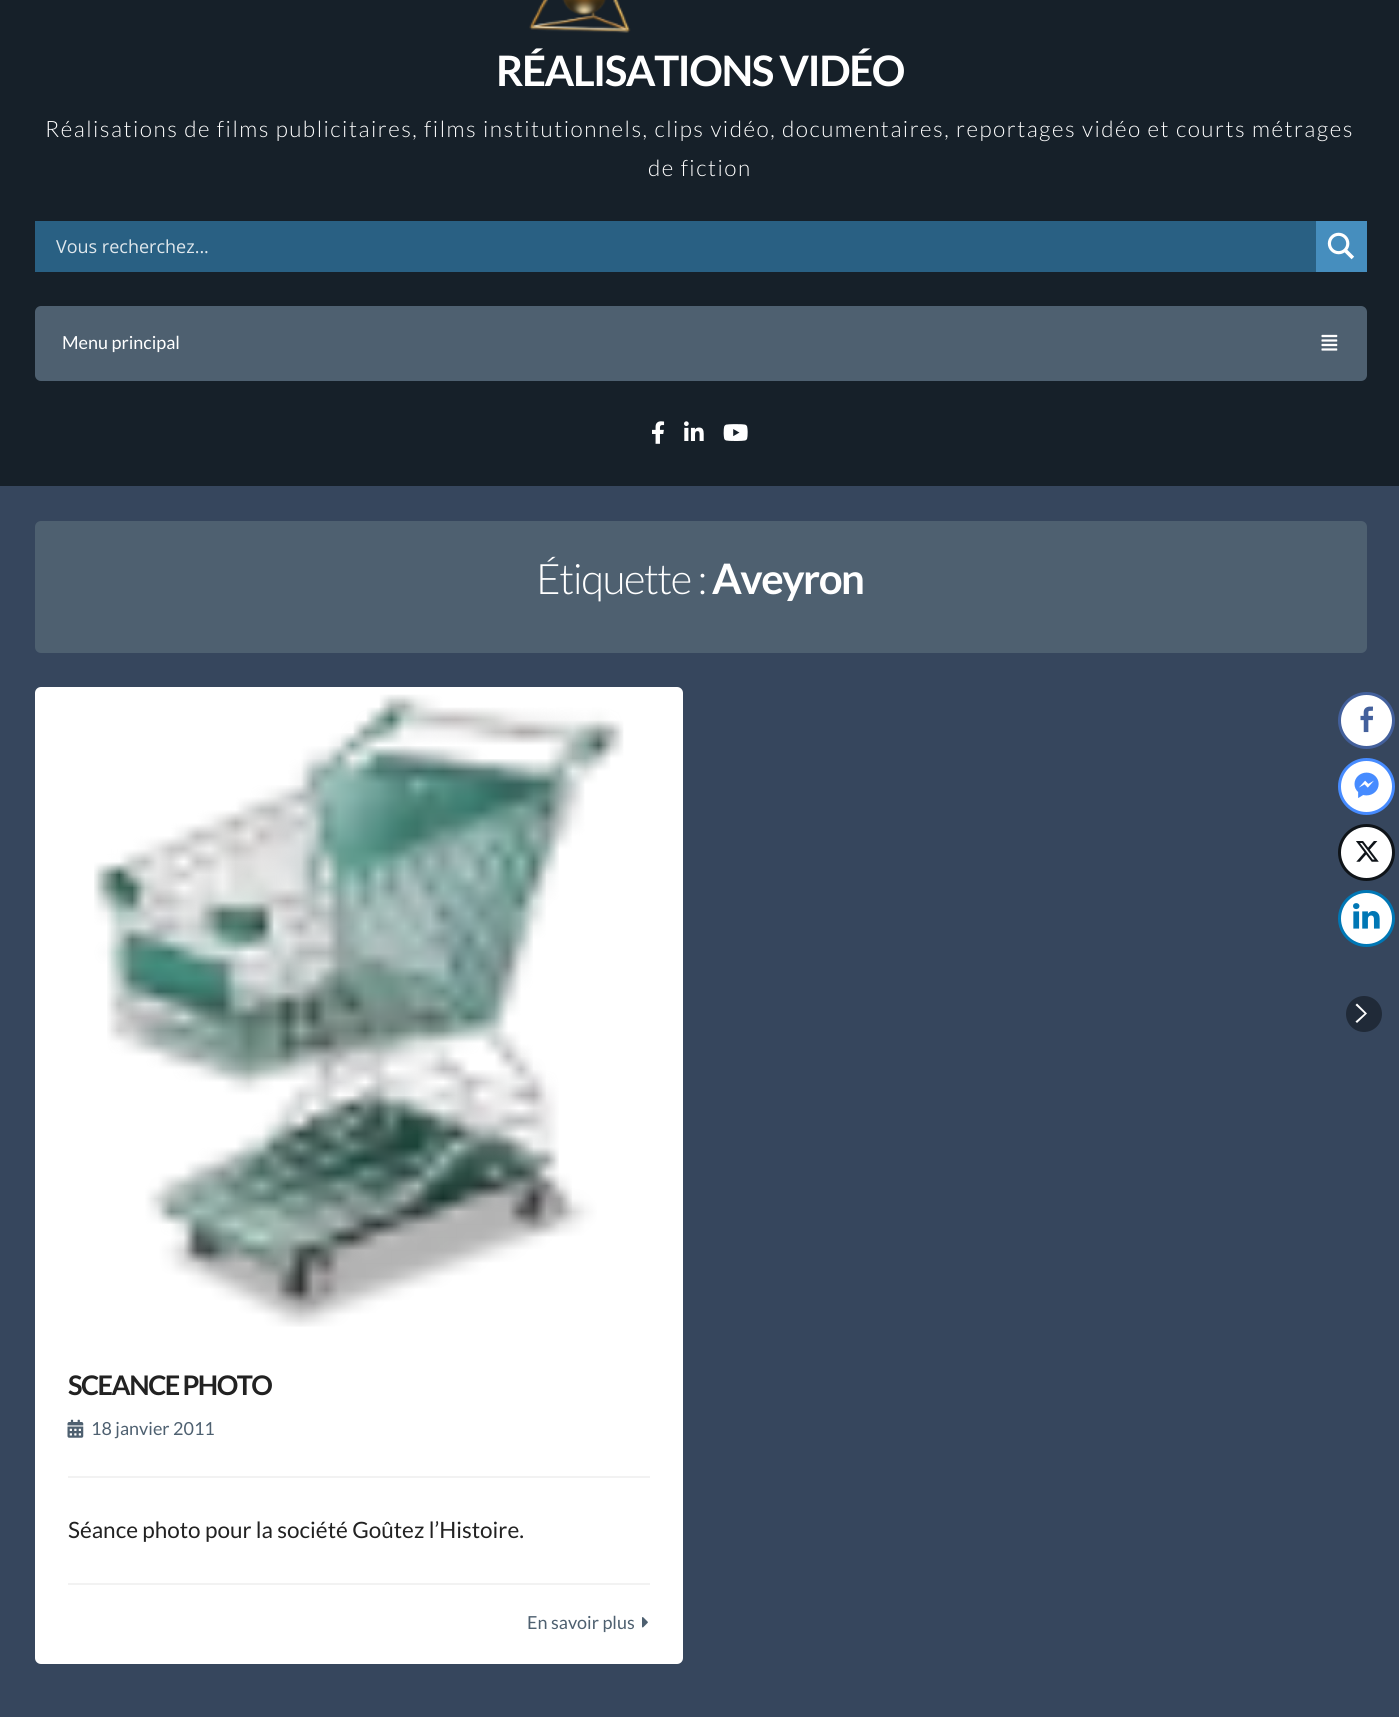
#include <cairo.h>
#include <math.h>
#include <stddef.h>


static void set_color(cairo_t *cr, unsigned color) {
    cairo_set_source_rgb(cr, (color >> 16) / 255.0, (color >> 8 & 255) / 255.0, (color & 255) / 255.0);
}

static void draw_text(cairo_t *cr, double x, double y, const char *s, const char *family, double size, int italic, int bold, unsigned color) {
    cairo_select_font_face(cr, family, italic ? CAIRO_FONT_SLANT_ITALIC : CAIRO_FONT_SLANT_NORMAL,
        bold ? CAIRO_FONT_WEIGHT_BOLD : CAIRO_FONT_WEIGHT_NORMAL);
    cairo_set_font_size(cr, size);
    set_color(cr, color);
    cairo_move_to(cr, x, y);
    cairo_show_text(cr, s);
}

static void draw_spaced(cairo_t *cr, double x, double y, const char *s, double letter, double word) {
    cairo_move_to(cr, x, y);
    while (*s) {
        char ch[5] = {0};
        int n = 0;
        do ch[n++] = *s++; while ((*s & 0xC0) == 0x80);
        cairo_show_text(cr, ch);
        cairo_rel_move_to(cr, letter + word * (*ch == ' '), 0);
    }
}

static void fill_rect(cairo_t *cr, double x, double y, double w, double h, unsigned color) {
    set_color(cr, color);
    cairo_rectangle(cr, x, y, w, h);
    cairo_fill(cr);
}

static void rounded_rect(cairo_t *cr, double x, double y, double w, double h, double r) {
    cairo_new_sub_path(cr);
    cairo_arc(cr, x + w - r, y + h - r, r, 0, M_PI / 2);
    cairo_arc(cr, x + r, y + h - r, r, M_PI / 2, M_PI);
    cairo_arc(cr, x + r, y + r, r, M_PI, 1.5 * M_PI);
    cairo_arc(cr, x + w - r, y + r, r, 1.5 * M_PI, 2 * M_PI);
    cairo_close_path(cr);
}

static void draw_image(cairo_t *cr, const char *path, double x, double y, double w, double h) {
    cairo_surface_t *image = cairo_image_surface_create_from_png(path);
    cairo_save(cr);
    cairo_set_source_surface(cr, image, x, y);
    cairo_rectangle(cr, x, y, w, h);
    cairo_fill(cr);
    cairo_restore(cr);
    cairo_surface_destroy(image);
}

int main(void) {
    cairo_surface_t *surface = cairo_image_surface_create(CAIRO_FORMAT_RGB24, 1399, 1717);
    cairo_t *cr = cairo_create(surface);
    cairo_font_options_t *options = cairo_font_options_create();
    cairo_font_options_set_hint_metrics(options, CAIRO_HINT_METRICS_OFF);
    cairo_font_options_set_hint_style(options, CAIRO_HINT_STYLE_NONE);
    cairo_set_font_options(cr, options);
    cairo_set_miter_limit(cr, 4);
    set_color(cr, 0x36465D);
    cairo_paint(cr);
    fill_rect(cr, 0, 0, 1399, 486, 0x162029);
    draw_image(cr, "assets/img1.png", 529, 0, 102, 33);
    cairo_select_font_face(cr, "Lato", CAIRO_FONT_SLANT_NORMAL, CAIRO_FONT_WEIGHT_BOLD);
    cairo_set_font_size(cr, 42);
    set_color(cr, 0xFFFFFF);
    draw_spaced(cr, 496, 86, "RÉALISATIONS VIDÉO", -1.5, 0);
    cairo_select_font_face(cr, "Lato Light", CAIRO_FONT_SLANT_NORMAL, CAIRO_FONT_WEIGHT_NORMAL);
    cairo_set_font_size(cr, 22.5);
    draw_spaced(cr, 45, 137, "Réalisations de films publicitaires, films institutionnels, clips vidéo, documentaires, reportages vidéo et courts métrages", 1.5, 0);
    draw_spaced(cr, 648, 176, "de fiction", 1.5, 0);
    fill_rect(cr, 35, 221, 1281, 51, 0x296083);
    draw_text(cr, 56, 253, "Vous recherchez...", "Open Sans", 18, 0, 0, 0xDFE7EC);
    fill_rect(cr, 1316, 221, 51, 51, 0x468EBE);
    draw_image(cr, "assets/img2.png", 1327, 232, 28, 28);
    set_color(cr, 0x4E6070);
    rounded_rect(cr, 35, 306, 1332, 75, 6);
    cairo_fill(cr);
    draw_text(cr, 62, 349, "Menu principal", "Lato", 18, 0, 0, 0xFFFFFF);
    draw_image(cr, "assets/img3.png", 1321, 334, 17, 17);
    draw_image(cr, "assets/img4.png", 652, 421, 13, 23);
    draw_image(cr, "assets/img5.png", 684, 421, 20, 20);
    draw_image(cr, "assets/img6.png", 723, 424, 25, 17);
    set_color(cr, 0x4E6070);
    rounded_rect(cr, 35, 521, 1332, 132, 6);
    cairo_fill(cr);
    cairo_select_font_face(cr, "Lato Light", CAIRO_FONT_SLANT_NORMAL, CAIRO_FONT_WEIGHT_NORMAL);
    cairo_set_font_size(cr, 42);
    set_color(cr, 0xFFFFFF);
    draw_spaced(cr, 536, 594, "Étiquette :", -1.5, 0);
    cairo_select_font_face(cr, "Lato", CAIRO_FONT_SLANT_NORMAL, CAIRO_FONT_WEIGHT_BOLD);
    draw_spaced(cr, 712, 594, "Aveyron", -1.5, 0);
    rounded_rect(cr, 35, 687, 648, 977, 6);
    cairo_fill(cr);
    draw_image(cr, "assets/img7.png", 94, 694, 530, 633);
    fill_rect(cr, 68, 1476, 582, 2, 0xF2F2F2);
    cairo_set_font_size(cr, 27);
    set_color(cr, 0x222222);
    draw_spaced(cr, 68, 1395, "SCEANCE PHOTO", -1.5, 0);
    draw_image(cr, "assets/img8.png", 67, 1419, 17, 19);
    draw_text(cr, 91, 1435, "18 janvier 2011", "Lato", 18, 0, 0, 0x4E6070);
    draw_text(cr, 68, 1538, "Séance photo pour la société Goûtez l’Histoire.", "Lato", 22.5, 0, 0, 0x222222);
    fill_rect(cr, 68, 1583, 582, 2, 0xF2F2F2);
    draw_text(cr, 527, 1629, "En savoir plus", "Lato", 18, 0, 0, 0x4E6070);
    draw_image(cr, "assets/img9.png", 642, 1617, 6, 11);
    set_color(cr, 0xFFFFFF);
    cairo_arc(cr, 1366.5, 720.5, 27, 0, 2 * M_PI);
    cairo_fill_preserve(cr);
    set_color(cr, 0x43609C);
    cairo_set_line_width(cr, 3);
    cairo_stroke(cr);
    draw_image(cr, "assets/img10.png", 1360, 706, 14, 27);
    set_color(cr, 0xFFFFFF);
    cairo_arc(cr, 1366.5, 786.5, 27, 0, 2 * M_PI);
    cairo_fill_preserve(cr);
    set_color(cr, 0x468BFF);
    cairo_stroke(cr);
    draw_image(cr, "assets/img11.png", 1354, 772, 25, 26);
    set_color(cr, 0xFFFFFF);
    cairo_arc(cr, 1366.5, 852.5, 27, 0, 2 * M_PI);
    cairo_fill_preserve(cr);
    set_color(cr, 0x0F1419);
    cairo_stroke(cr);
    draw_image(cr, "assets/img12.png", 1356, 841, 23, 21);
    set_color(cr, 0xFFFFFF);
    cairo_arc(cr, 1366.5, 918.5, 27, 0, 2 * M_PI);
    cairo_fill_preserve(cr);
    set_color(cr, 0x0077B5);
    cairo_stroke(cr);
    draw_image(cr, "assets/img13.png", 1353, 903, 27, 26);
    set_color(cr, 0x202A38);
    cairo_arc(cr, 1364, 1014, 18, 0, 2 * M_PI);
    cairo_fill(cr);
    set_color(cr, 0xFFFFFF);
    cairo_new_path(cr);
    cairo_move_to(cr, 1355.5, 1021.5);
    cairo_line_to(cr, 1357, 1023);
    cairo_line_to(cr, 1367, 1013.5);
    cairo_line_to(cr, 1357, 1003.5);
    cairo_line_to(cr, 1355.5, 1005);
    cairo_line_to(cr, 1364.5, 1013.5);
    cairo_fill(cr);
    cairo_surface_write_to_png(surface, "output.png");
    cairo_font_options_destroy(options);
    cairo_destroy(cr);
    cairo_surface_destroy(surface);
    return 0;
}
